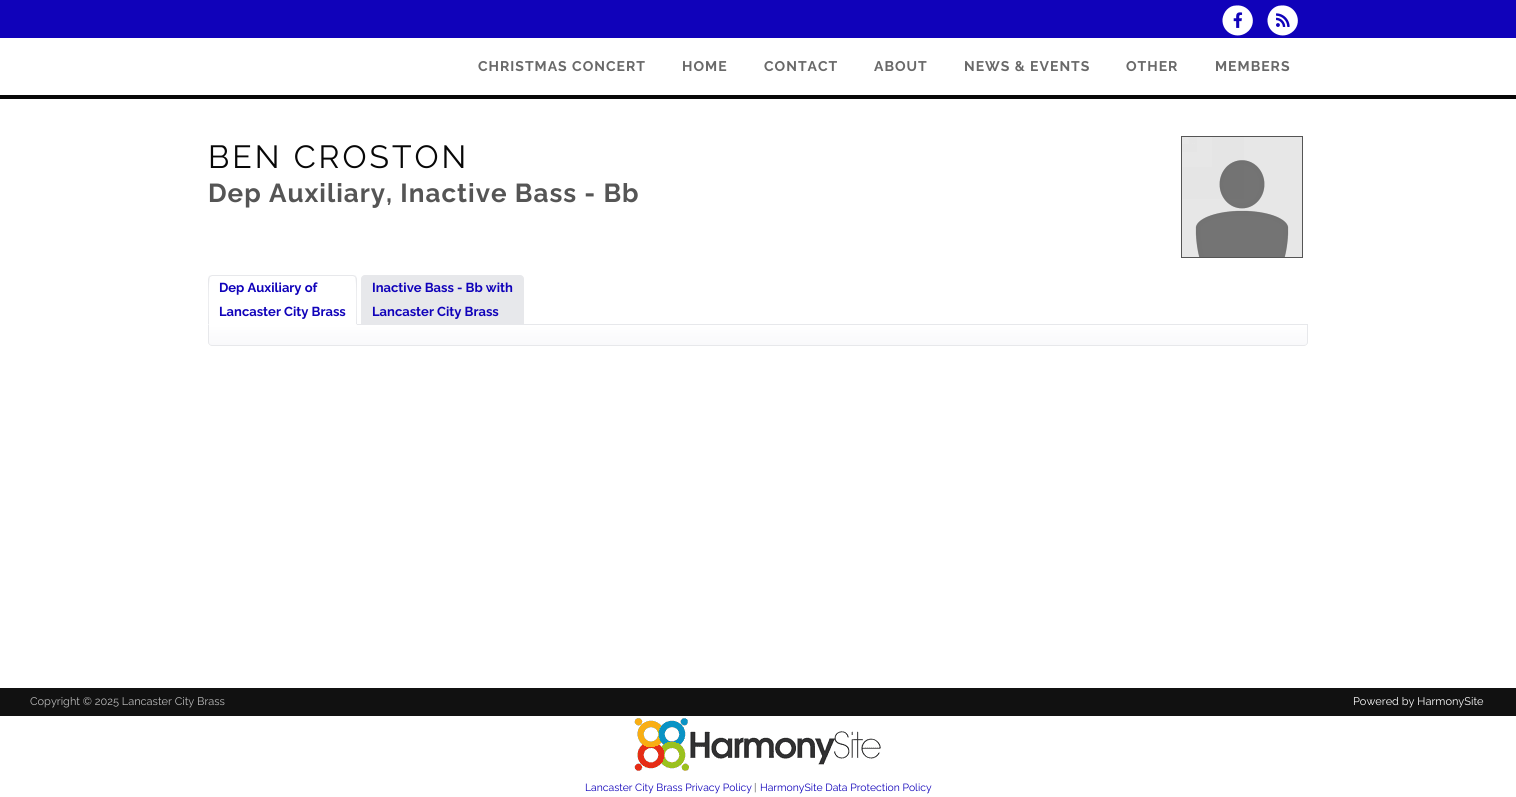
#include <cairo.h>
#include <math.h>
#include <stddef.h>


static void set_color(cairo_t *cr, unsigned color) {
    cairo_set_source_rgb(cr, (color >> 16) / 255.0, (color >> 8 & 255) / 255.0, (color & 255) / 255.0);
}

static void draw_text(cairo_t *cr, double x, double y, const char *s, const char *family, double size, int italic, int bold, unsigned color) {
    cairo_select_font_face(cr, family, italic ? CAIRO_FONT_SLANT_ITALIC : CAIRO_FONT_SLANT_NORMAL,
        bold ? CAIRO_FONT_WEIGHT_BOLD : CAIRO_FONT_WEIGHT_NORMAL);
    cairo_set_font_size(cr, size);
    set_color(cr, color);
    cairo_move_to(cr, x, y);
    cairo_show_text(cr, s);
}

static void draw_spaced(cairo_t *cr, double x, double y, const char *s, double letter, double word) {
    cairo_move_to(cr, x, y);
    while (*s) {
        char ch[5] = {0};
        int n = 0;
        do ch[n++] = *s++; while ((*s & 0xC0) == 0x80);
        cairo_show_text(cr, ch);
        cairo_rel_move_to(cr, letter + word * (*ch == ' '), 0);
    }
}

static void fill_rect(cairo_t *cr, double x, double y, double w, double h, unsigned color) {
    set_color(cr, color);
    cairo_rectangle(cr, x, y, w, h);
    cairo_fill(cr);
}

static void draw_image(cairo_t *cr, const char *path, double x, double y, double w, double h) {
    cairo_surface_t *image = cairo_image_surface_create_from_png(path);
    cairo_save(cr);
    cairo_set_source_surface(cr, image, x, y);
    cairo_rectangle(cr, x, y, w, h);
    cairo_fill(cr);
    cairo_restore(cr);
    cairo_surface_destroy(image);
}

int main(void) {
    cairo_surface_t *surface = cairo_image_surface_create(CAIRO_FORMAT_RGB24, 1516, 797);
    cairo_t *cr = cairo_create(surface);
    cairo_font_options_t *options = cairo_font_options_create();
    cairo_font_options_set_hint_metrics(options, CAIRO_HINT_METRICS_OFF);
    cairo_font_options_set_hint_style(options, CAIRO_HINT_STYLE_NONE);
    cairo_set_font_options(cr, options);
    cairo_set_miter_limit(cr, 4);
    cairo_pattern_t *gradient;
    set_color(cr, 0xFFFFFF);
    cairo_paint(cr);
    fill_rect(cr, 0, 0, 1516, 38, 0x1002BA);
    set_color(cr, 0xFFFFFF);
    cairo_new_path(cr);
    cairo_move_to(cr, 1227, 9.5);
    cairo_curve_to(cr, 1229.5, 7, 1232.5, 5.5, 1236, 5.5);
    cairo_curve_to(cr, 1250, 4, 1258.5, 21, 1248.5, 31);
    cairo_curve_to(cr, 1238, 41, 1221.5, 33, 1222.5, 19);
    cairo_curve_to(cr, 1223, 15.5, 1224.5, 12, 1227, 9.5);
    cairo_close_path(cr);
    cairo_fill(cr);
    draw_image(cr, "assets/img1.png", 1233, 12, 10, 16);
    cairo_new_path(cr);
    cairo_move_to(cr, 1272, 9.5);
    cairo_curve_to(cr, 1274.5, 7, 1277.5, 5.5, 1281, 5.5);
    cairo_curve_to(cr, 1295, 4, 1303.5, 21, 1293.5, 31);
    cairo_curve_to(cr, 1283, 41, 1266.5, 33, 1267.5, 19);
    cairo_curve_to(cr, 1268, 15.5, 1269.5, 12, 1272, 9.5);
    cairo_close_path(cr);
    cairo_fill(cr);
    draw_image(cr, "assets/img2.png", 1276, 13, 14, 14);
    cairo_select_font_face(cr, "Raleway", CAIRO_FONT_SLANT_NORMAL, CAIRO_FONT_WEIGHT_BOLD);
    cairo_set_font_size(cr, 14);
    set_color(cr, 0x696969);
    draw_spaced(cr, 478, 71, "CHRISTMAS CONCERT", 1, 0);
    draw_spaced(cr, 682, 71, "HOME", 1, 0);
    draw_spaced(cr, 764, 71, "CONTACT", 1, 0);
    draw_spaced(cr, 874, 71, "ABOUT", 1, 0);
    draw_spaced(cr, 964, 71, "NEWS & EVENTS", 1, 0);
    draw_spaced(cr, 1126, 71, "OTHER", 1, 0);
    draw_spaced(cr, 1215, 71, "MEMBERS", 1, 0);
    fill_rect(cr, 0, 95, 1516, 4, 0x070707);
    cairo_select_font_face(cr, "Raleway", CAIRO_FONT_SLANT_NORMAL, CAIRO_FONT_WEIGHT_NORMAL);
    cairo_set_font_size(cr, 32);
    draw_spaced(cr, 208, 168, "BEN CROSTON", 3, 0);
    cairo_select_font_face(cr, "Raleway", CAIRO_FONT_SLANT_NORMAL, CAIRO_FONT_WEIGHT_BOLD);
    cairo_set_font_size(cr, 26);
    set_color(cr, 0x555555);
    draw_spaced(cr, 208, 202, "Dep Auxiliary, Inactive Bass - Bb", 1, 0);
    fill_rect(cr, 357, 324, 951, 1, 0xE7E8EB);
    cairo_new_path(cr);
    cairo_move_to(cr, 212, 275);
    cairo_line_to(cr, 209, 276);
    cairo_line_to(cr, 210, 277);
    cairo_line_to(cr, 212, 276);
    cairo_line_to(cr, 353, 276);
    cairo_line_to(cr, 355, 277);
    cairo_line_to(cr, 356, 276);
    cairo_line_to(cr, 353, 275);
    cairo_close_path(cr);
    cairo_fill(cr);
    cairo_new_path(cr);
    cairo_move_to(cr, 357, 325);
    cairo_line_to(cr, 357, 279);
    cairo_curve_to(cr, 357, 278, 356, 277, 356, 276);
    cairo_line_to(cr, 355, 277);
    cairo_curve_to(cr, 357, 279, 356, 318, 356, 324);
    cairo_close_path(cr);
    cairo_fill(cr);
    set_color(cr, 0xFFFFFF);
    cairo_new_path(cr);
    cairo_move_to(cr, 357, 325);
    cairo_line_to(cr, 356, 324);
    cairo_line_to(cr, 209, 324);
    cairo_line_to(cr, 208, 325);
    cairo_close_path(cr);
    cairo_fill(cr);
    set_color(cr, 0xE7E8EB);
    cairo_new_path(cr);
    cairo_move_to(cr, 208, 325);
    cairo_line_to(cr, 209, 324);
    cairo_curve_to(cr, 209, 318, 208, 279, 210, 277);
    cairo_line_to(cr, 209, 276);
    cairo_line_to(cr, 208, 279);
    cairo_close_path(cr);
    cairo_fill(cr);
    draw_text(cr, 219, 292, "Dep Auxiliary of", "Raleway", 13, 0, 1, 0x1002BA);
    draw_text(cr, 219, 316, "Lancaster City Brass", "Raleway", 13, 0, 1, 0x1002BA);
    set_color(cr, 0xE7E8EB);
    cairo_new_path(cr);
    cairo_move_to(cr, 365, 275.5);
    cairo_line_to(cr, 520, 275.5);
    cairo_curve_to(cr, 522, 275.5, 523.5, 277, 523.5, 279);
    cairo_line_to(cr, 523.5, 324.5);
    cairo_line_to(cr, 361.5, 324.5);
    cairo_line_to(cr, 361.5, 279);
    cairo_curve_to(cr, 361.5, 277, 363, 275.5, 365, 275.5);
    cairo_close_path(cr);
    cairo_fill_preserve(cr);
    cairo_set_line_width(cr, 1);
    cairo_stroke(cr);
    draw_text(cr, 372, 292, "Inactive Bass - Bb with", "Raleway", 13, 0, 1, 0x1002BA);
    draw_text(cr, 372, 316, "Lancaster City Brass", "Raleway", 13, 0, 1, 0x1002BA);
    cairo_save(cr);
    cairo_new_path(cr);
    cairo_move_to(cr, 208, 325);
    cairo_line_to(cr, 1308, 325);
    cairo_line_to(cr, 1308, 342);
    cairo_curve_to(cr, 1308, 344, 1306, 346, 1304, 346);
    cairo_line_to(cr, 212, 346);
    cairo_curve_to(cr, 210, 346, 208, 344, 208, 342);
    cairo_close_path(cr);
    cairo_clip(cr);
    gradient = cairo_pattern_create_linear(758, 325, 758, 345);
    cairo_pattern_add_color_stop_rgba(gradient, 0, 1, 1, 1, 1);
    cairo_pattern_add_color_stop_rgba(gradient, 1, 0.976, 0.976, 0.984, 1);
    cairo_set_source(cr, gradient);
    cairo_pattern_destroy(gradient);
    cairo_rectangle(cr, 208, 325, 1100, 20);
    cairo_fill(cr);
    cairo_restore(cr);
    set_color(cr, 0xE7E8EB);
    cairo_set_fill_rule(cr, CAIRO_FILL_RULE_EVEN_ODD);
    cairo_new_path(cr);
    cairo_move_to(cr, 208, 325);
    cairo_line_to(cr, 1308, 325);
    cairo_line_to(cr, 1308, 342);
    cairo_curve_to(cr, 1308, 344, 1306, 346, 1304, 346);
    cairo_line_to(cr, 212, 346);
    cairo_curve_to(cr, 210, 346, 208, 344, 208, 342);
    cairo_close_path(cr);
    cairo_move_to(cr, 209, 325);
    cairo_line_to(cr, 1307, 325);
    cairo_line_to(cr, 1307, 342);
    cairo_curve_to(cr, 1307, 344, 1306, 345, 1304, 345);
    cairo_line_to(cr, 212, 345);
    cairo_curve_to(cr, 210, 345, 209, 344, 209, 342);
    cairo_close_path(cr);
    cairo_fill(cr);
    cairo_rectangle(cr, 1181.5, 136.5, 121, 121);
    set_color(cr, 0x555555);
    cairo_stroke(cr);
    draw_image(cr, "assets/img3.png", 1182, 137, 120, 120);
    fill_rect(cr, 0, 688, 1516, 28, 0x111111);
    draw_text(cr, 30, 705, "Copyright © 2025 Lancaster City Brass", "Raleway", 11, 0, 0, 0xBBBBBB);
    draw_text(cr, 1353, 705, "Powered by HarmonySite", "Raleway", 11, 0, 0, 0xFFFFFF);
    draw_image(cr, "assets/img4.png", 634, 718, 247, 53);
    draw_text(cr, 585, 791, "Lancaster City Brass Privacy Policy", "Raleway", 10.4, 0, 0, 0x1002BA);
    draw_text(cr, 754, 791, "|", "Raleway", 10.4, 0, 0, 0x555555);
    draw_text(cr, 760, 791, "HarmonySite Data Protection Policy", "Raleway", 10.4, 0, 0, 0x1002BA);
    cairo_surface_write_to_png(surface, "output.png");
    cairo_font_options_destroy(options);
    cairo_destroy(cr);
    cairo_surface_destroy(surface);
    return 0;
}
